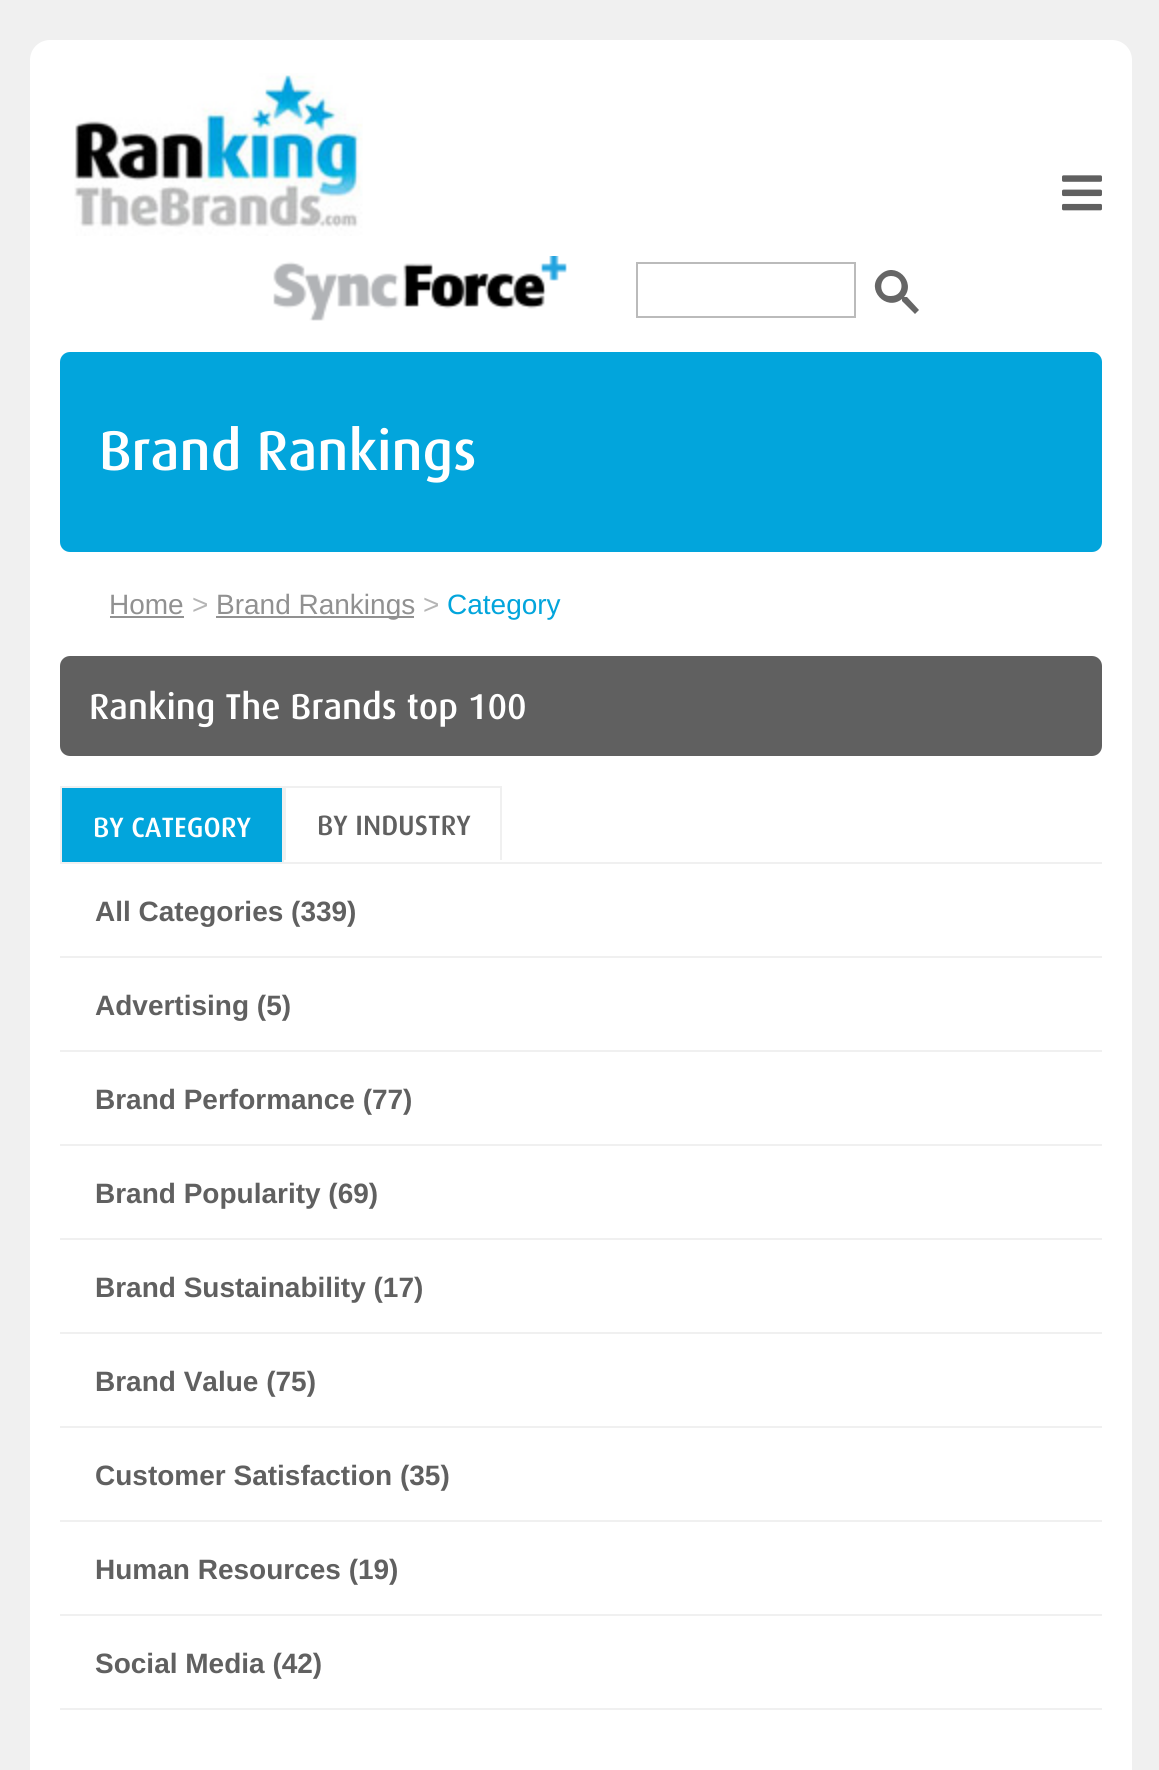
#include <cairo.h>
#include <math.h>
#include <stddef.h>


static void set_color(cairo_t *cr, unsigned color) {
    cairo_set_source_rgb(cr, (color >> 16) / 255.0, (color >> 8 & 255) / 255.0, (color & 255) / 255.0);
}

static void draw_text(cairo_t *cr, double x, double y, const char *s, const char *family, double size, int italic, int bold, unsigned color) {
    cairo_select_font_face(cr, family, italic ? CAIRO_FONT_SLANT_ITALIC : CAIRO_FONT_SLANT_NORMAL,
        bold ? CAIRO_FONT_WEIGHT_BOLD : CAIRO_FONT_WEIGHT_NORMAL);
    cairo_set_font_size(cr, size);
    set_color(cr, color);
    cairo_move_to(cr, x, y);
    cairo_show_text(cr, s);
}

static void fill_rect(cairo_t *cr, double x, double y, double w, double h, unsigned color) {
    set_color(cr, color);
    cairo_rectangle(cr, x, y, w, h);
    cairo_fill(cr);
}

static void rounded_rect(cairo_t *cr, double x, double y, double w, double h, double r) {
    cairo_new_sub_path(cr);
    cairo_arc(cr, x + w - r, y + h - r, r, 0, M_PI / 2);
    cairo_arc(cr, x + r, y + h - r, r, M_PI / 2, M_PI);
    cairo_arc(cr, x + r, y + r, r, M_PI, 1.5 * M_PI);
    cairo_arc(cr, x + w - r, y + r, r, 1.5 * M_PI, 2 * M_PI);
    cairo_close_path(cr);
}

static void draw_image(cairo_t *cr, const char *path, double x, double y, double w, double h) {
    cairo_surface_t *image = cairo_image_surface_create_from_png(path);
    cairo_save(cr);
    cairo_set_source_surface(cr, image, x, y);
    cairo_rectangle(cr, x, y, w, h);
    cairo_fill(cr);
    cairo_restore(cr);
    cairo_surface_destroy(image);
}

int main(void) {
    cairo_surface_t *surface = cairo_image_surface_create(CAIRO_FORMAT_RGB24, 1159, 1770);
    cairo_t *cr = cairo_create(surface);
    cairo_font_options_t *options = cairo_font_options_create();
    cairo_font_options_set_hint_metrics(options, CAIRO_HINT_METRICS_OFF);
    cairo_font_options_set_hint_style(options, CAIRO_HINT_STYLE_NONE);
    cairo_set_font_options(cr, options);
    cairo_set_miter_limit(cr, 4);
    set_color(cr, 0xF0F0F0);
    cairo_paint(cr);
    set_color(cr, 0xFFFFFF);
    rounded_rect(cr, 30, 40, 1102, 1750, 20);
    cairo_fill(cr);
    draw_image(cr, "assets/img1.png", 74, 73, 289, 163);
    draw_image(cr, "assets/img2.png", 1062, 175, 40, 36);
    draw_image(cr, "assets/img3.png", 273, 256, 294, 65);
    cairo_rectangle(cr, 637, 263, 218, 54);
    set_color(cr, 0xBBBBBB);
    cairo_stroke(cr);
    set_color(cr, 0x666666);
    cairo_new_path(cr);
    cairo_move_to(cr, 891, 296);
    cairo_curve_to(cr, 905, 296, 905, 276, 891, 276);
    cairo_curve_to(cr, 878, 276, 878, 297, 891, 296);
    cairo_close_path(cr);
    cairo_move_to(cr, 907, 297);
    cairo_line_to(cr, 919, 310);
    cairo_line_to(cr, 915, 314);
    cairo_line_to(cr, 902, 301);
    cairo_line_to(cr, 902, 299);
    cairo_curve_to(cr, 886, 312, 865, 289, 880, 275);
    cairo_curve_to(cr, 895, 260, 917, 282, 904, 297);
    cairo_close_path(cr);
    cairo_fill(cr);
    set_color(cr, 0x02A5DC);
    rounded_rect(cr, 60, 352, 1042, 200, 10);
    cairo_fill(cr);
    draw_text(cr, 99, 470, "Brand Rankings", "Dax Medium", 56, 0, 0, 0xFFFFFF);
    draw_text(cr, 109, 614, "Home", "Liberation Sans", 28, 0, 0, 0x919191);
    fill_rect(cr, 110, 616, 74, 2, 0x919191);
    draw_text(cr, 192, 614, ">", "Liberation Sans", 28, 0, 0, 0xB5B5B5);
    fill_rect(cr, 216, 616, 198, 2, 0x919191);
    draw_text(cr, 216, 614, "Brand Rankings", "Liberation Sans", 28, 0, 0, 0x919191);
    draw_text(cr, 423, 614, ">", "Liberation Sans", 28, 0, 0, 0xB5B5B5);
    draw_text(cr, 447, 614, "Category", "Liberation Sans", 28, 0, 0, 0x02A5DC);
    set_color(cr, 0x606060);
    rounded_rect(cr, 60, 656, 1042, 100, 10);
    cairo_fill(cr);
    draw_text(cr, 89, 719, "Ranking The Brands top 100", "Dax Medium", 36, 0, 0, 0xFFFFFF);
    fill_rect(cr, 60, 862, 1042, 2, 0xF0F0F0);
    fill_rect(cr, 60, 786, 442, 2, 0xF0F0F0);
    fill_rect(cr, 282, 786, 2, 76, 0xF0F0F0);
    fill_rect(cr, 60, 786, 2, 76, 0xF0F0F0);
    fill_rect(cr, 62, 788, 220, 74, 0x02A5DC);
    draw_text(cr, 93, 837, "BY CATEGORY", "Dax Medium", 28, 0, 0, 0xFFFFFF);
    fill_rect(cr, 500, 786, 2, 74, 0xF0F0F0);
    fill_rect(cr, 284, 786, 2, 74, 0xF0F0F0);
    draw_text(cr, 317, 835, "BY INDUSTRY", "Dax Medium", 28, 0, 0, 0x606060);
    fill_rect(cr, 60, 956, 1042, 2, 0xF0F0F0);
    draw_text(cr, 95, 921, "All Categories (339)", "Liberation Sans", 28, 0, 1, 0x606060);
    fill_rect(cr, 60, 1050, 1042, 2, 0xF0F0F0);
    draw_text(cr, 95, 1015, "Advertising (5)", "Liberation Sans", 28, 0, 1, 0x606060);
    fill_rect(cr, 60, 1144, 1042, 2, 0xF0F0F0);
    draw_text(cr, 95, 1109, "Brand Performance (77)", "Liberation Sans", 28, 0, 1, 0x606060);
    fill_rect(cr, 60, 1238, 1042, 2, 0xF0F0F0);
    draw_text(cr, 95, 1203, "Brand Popularity (69)", "Liberation Sans", 28, 0, 1, 0x606060);
    fill_rect(cr, 60, 1332, 1042, 2, 0xF0F0F0);
    draw_text(cr, 95, 1297, "Brand Sustainability (17)", "Liberation Sans", 28, 0, 1, 0x606060);
    fill_rect(cr, 60, 1426, 1042, 2, 0xF0F0F0);
    draw_text(cr, 95, 1391, "Brand Value (75)", "Liberation Sans", 28, 0, 1, 0x606060);
    fill_rect(cr, 60, 1520, 1042, 2, 0xF0F0F0);
    draw_text(cr, 95, 1485, "Customer Satisfaction (35)", "Liberation Sans", 28, 0, 1, 0x606060);
    fill_rect(cr, 60, 1614, 1042, 2, 0xF0F0F0);
    draw_text(cr, 95, 1579, "Human Resources (19)", "Liberation Sans", 28, 0, 1, 0x606060);
    fill_rect(cr, 60, 1708, 1042, 2, 0xF0F0F0);
    draw_text(cr, 95, 1673, "Social Media (42)", "Liberation Sans", 28, 0, 1, 0x606060);
    cairo_surface_write_to_png(surface, "output.png");
    cairo_font_options_destroy(options);
    cairo_destroy(cr);
    cairo_surface_destroy(surface);
    return 0;
}
